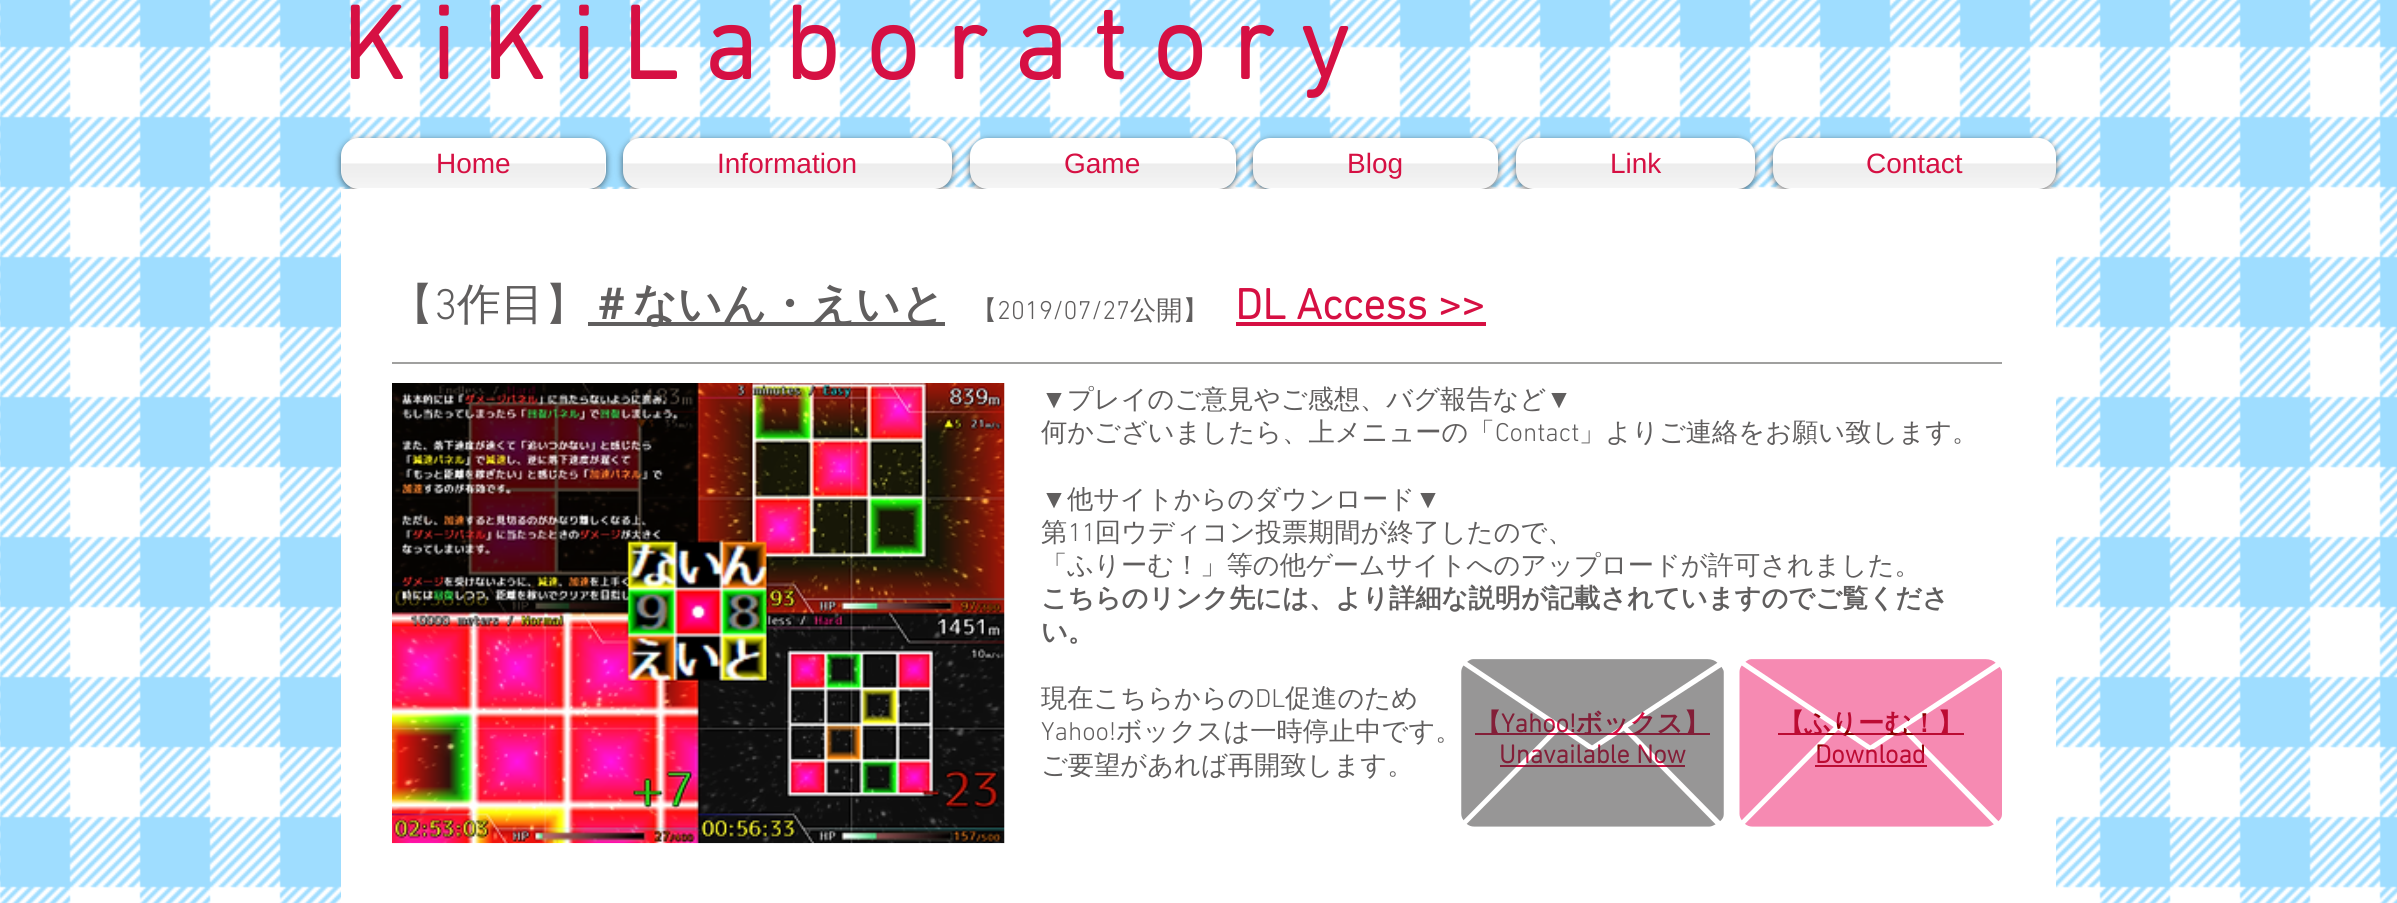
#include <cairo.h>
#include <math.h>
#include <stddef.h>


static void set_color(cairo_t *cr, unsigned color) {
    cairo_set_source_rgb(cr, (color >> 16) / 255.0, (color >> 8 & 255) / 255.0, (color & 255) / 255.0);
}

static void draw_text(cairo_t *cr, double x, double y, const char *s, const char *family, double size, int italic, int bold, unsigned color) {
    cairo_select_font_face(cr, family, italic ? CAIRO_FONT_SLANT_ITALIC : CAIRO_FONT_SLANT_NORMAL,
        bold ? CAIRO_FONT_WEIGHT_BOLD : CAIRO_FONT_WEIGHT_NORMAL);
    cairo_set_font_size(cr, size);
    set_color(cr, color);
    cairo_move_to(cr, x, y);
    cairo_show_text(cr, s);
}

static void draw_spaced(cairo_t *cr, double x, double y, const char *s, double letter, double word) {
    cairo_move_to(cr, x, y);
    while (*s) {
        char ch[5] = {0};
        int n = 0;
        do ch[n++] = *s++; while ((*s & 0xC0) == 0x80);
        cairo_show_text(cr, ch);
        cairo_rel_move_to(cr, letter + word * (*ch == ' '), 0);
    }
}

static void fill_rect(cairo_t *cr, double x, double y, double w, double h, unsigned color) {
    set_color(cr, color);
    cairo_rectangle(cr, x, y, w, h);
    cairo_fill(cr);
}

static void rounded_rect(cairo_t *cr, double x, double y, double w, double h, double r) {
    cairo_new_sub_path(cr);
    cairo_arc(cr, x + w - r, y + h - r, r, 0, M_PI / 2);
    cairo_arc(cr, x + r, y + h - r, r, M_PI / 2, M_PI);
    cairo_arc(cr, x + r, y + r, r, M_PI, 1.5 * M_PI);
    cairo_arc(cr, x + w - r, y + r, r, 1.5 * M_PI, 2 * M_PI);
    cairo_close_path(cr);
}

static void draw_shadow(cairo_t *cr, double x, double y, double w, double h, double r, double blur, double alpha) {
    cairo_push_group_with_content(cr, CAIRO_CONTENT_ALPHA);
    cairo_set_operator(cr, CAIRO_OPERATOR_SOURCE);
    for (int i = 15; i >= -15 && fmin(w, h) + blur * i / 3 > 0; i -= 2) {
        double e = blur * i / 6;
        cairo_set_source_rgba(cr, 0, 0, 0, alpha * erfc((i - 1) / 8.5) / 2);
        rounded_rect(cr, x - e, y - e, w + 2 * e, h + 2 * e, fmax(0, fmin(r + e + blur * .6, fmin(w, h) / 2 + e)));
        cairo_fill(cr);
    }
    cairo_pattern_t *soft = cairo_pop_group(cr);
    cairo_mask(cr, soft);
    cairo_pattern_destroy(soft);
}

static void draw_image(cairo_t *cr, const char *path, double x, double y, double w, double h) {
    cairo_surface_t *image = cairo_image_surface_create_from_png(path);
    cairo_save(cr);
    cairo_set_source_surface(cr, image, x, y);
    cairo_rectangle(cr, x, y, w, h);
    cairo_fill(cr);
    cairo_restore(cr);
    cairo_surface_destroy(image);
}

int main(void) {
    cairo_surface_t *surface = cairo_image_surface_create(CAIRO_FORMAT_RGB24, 2397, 903);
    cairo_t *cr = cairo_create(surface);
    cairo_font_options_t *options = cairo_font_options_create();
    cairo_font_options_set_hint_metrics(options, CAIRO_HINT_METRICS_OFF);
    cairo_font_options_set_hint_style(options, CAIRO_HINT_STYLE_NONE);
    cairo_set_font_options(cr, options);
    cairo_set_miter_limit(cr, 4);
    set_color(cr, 0xFFFFFF);
    cairo_paint(cr);
    draw_image(cr, "assets/img1.png", 0, 0, 2397, 903);
    cairo_select_font_face(cr, "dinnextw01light", CAIRO_FONT_SLANT_NORMAL, CAIRO_FONT_WEIGHT_BOLD);
    cairo_set_font_size(cr, 105);
    set_color(cr, 0xD61043);
    draw_spaced(cr, 341, 79, "KiKiLaboratory", 26.25, 0);
    set_color(cr, 0x000000);
    draw_shadow(cr, 341, 140, 265, 51, 18, 3.5, 0.6);
    set_color(cr, 0xFFFFFF);
    rounded_rect(cr, 341, 138, 265, 51, 18);
    cairo_fill(cr);
    draw_image(cr, "assets/img2.png", 341, 138, 264, 50);
    draw_text(cr, 436, 173, "Home", "Liberation Sans", 28, 0, 0, 0xD61043);
    set_color(cr, 0x000000);
    draw_shadow(cr, 623, 140, 329, 51, 18, 3.5, 0.6);
    set_color(cr, 0xFFFFFF);
    rounded_rect(cr, 623, 138, 329, 51, 18);
    cairo_fill(cr);
    draw_image(cr, "assets/img3.png", 623, 138, 329, 50);
    draw_text(cr, 717, 173, "Information", "Liberation Sans", 28, 0, 0, 0xD61043);
    set_color(cr, 0x000000);
    draw_shadow(cr, 970, 140, 266, 51, 18, 3.5, 0.6);
    set_color(cr, 0xFFFFFF);
    rounded_rect(cr, 970, 138, 266, 51, 18);
    cairo_fill(cr);
    draw_image(cr, "assets/img4.png", 970, 138, 265, 50);
    draw_text(cr, 1064, 173, "Game", "Liberation Sans", 28, 0, 0, 0xD61043);
    set_color(cr, 0x000000);
    draw_shadow(cr, 1253, 140, 245, 51, 18, 3.5, 0.6);
    set_color(cr, 0xFFFFFF);
    rounded_rect(cr, 1253, 138, 245, 51, 18);
    cairo_fill(cr);
    draw_image(cr, "assets/img5.png", 1253, 138, 245, 50);
    draw_text(cr, 1347, 173, "Blog", "Liberation Sans", 28, 0, 0, 0xD61043);
    set_color(cr, 0x000000);
    draw_shadow(cr, 1516, 140, 239, 51, 18, 3.5, 0.6);
    set_color(cr, 0xFFFFFF);
    rounded_rect(cr, 1516, 138, 239, 51, 18);
    cairo_fill(cr);
    draw_image(cr, "assets/img6.png", 1516, 138, 239, 50);
    draw_text(cr, 1610, 173, "Link", "Liberation Sans", 28, 0, 0, 0xD61043);
    set_color(cr, 0x000000);
    draw_shadow(cr, 1773, 140, 283, 51, 18, 3.5, 0.6);
    set_color(cr, 0xFFFFFF);
    rounded_rect(cr, 1773, 138, 283, 51, 18);
    cairo_fill(cr);
    draw_image(cr, "assets/img7.png", 1773, 138, 283, 50);
    draw_text(cr, 1866, 173, "Contact", "Liberation Sans", 28, 0, 0, 0xD61043);
    fill_rect(cr, 341, 189, 1715, 714, 0xFFFFFF);
    draw_text(cr, 390, 319, "【", "WenQuanYi Zen Hei Medium", 43.75, 0, 0, 0x605E5E);
    draw_text(cr, 434, 319, "3", "dinnextw01light Light", 43.75, 0, 0, 0x605E5E);
    draw_text(cr, 457, 319, "作目】", "WenQuanYi Zen Hei Medium", 43.75, 0, 0, 0x605E5E);
    fill_rect(cr, 588, 322, 357, 4, 0x605E5E);
    draw_text(cr, 589, 319, "＃ないん・えいと", "WenQuanYi Zen Hei", 43.75, 0, 1, 0x605E5E);
    draw_text(cr, 971, 319, "【", "WenQuanYi Zen Hei Medium", 26.25, 0, 0, 0x605E5E);
    draw_text(cr, 997, 319, "2019/07/27", "dinnextw01light Light", 26.25, 0, 0, 0x605E5E);
    draw_text(cr, 1130, 319, "公開】", "WenQuanYi Zen Hei Medium", 26.25, 0, 0, 0x605E5E);
    draw_text(cr, 1235, 319, "DL Access >>", "dinnextw01light", 43.75, 0, 1, 0xD61043);
    fill_rect(cr, 1236, 322, 250, 4, 0xD61043);
    fill_rect(cr, 392, 362, 1610, 2, 0xA0A09F);
    draw_image(cr, "assets/img8.png", 392, 383, 613, 461);
    draw_text(cr, 1041, 408, "▼", "Liberation Sans", 26.25, 0, 0, 0x605E5E);
    draw_text(cr, 1067, 408, "プレイのご意見やご感想、バグ報告など", "WenQuanYi Zen Hei Medium", 26.25, 0, 0, 0x605E5E);
    draw_text(cr, 1546, 408, "▼", "Liberation Sans", 26.25, 0, 0, 0x605E5E);
    draw_text(cr, 1041, 441, "何かございましたら、上メニューの「", "WenQuanYi Zen Hei Medium", 26.25, 0, 0, 0x605E5E);
    draw_text(cr, 1495, 441, "Contact", "dinnextw01light Light", 26.25, 0, 0, 0x605E5E);
    draw_text(cr, 1579, 441, "」よりご連絡をお願い致します。", "WenQuanYi Zen Hei Medium", 26.25, 0, 0, 0x605E5E);
    draw_text(cr, 1041, 508, "▼", "Liberation Sans", 26.25, 0, 0, 0x605E5E);
    draw_text(cr, 1067, 508, "他サイトからのダウンロード", "WenQuanYi Zen Hei Medium", 26.25, 0, 0, 0x605E5E);
    draw_text(cr, 1415, 508, "▼", "Liberation Sans", 26.25, 0, 0, 0x605E5E);
    draw_text(cr, 1041, 541, "第", "WenQuanYi Zen Hei Medium", 26.25, 0, 0, 0x605E5E);
    draw_text(cr, 1068, 541, "11", "dinnextw01light Light", 26.25, 0, 0, 0x605E5E);
    draw_text(cr, 1095, 541, "回ウディコン投票期間が終了したので、", "WenQuanYi Zen Hei Medium", 26.25, 0, 0, 0x605E5E);
    draw_text(cr, 1041, 574, "「ふりーむ！」等の他ゲームサイトへのアップロードが許可されました。", "WenQuanYi Zen Hei Medium", 26.25, 0, 0, 0x605E5E);
    draw_text(cr, 1041, 607, "こちらのリンク先には、より詳細な説明が記載されていますのでご覧くださ", "WenQuanYi Zen Hei", 26.25, 0, 1, 0x605E5E);
    draw_text(cr, 1041, 641, "い。", "WenQuanYi Zen Hei", 26.25, 0, 1, 0x605E5E);
    draw_text(cr, 1041, 707, "現在こちらからの", "WenQuanYi Zen Hei Medium", 26.25, 0, 0, 0x605E5E);
    draw_text(cr, 1255, 707, "DL", "dinnextw01light Light", 26.25, 0, 0, 0x605E5E);
    draw_text(cr, 1285, 707, "促進のため", "WenQuanYi Zen Hei Medium", 26.25, 0, 0, 0x605E5E);
    draw_text(cr, 1041, 740, "Yahoo!", "dinnextw01light Light", 26.25, 0, 0, 0x605E5E);
    draw_text(cr, 1116, 740, "ボックスは一時停止中です。", "WenQuanYi Zen Hei Medium", 26.25, 0, 0, 0x605E5E);
    draw_text(cr, 1041, 774, "ご要望があれば再開致します。", "WenQuanYi Zen Hei Medium", 26.25, 0, 0, 0x605E5E);
    fill_rect(cr, 1475, 733, 235, 2, 0xD61043);
    draw_text(cr, 1475, 732, "【", "WenQuanYi Zen Hei", 26.25, 0, 1, 0xD61043);
    draw_text(cr, 1501, 732, "Yahoo!", "dinnextw01light", 26.25, 0, 1, 0xD61043);
    draw_text(cr, 1576, 732, "ボックス】", "WenQuanYi Zen Hei", 26.25, 0, 1, 0xD61043);
    draw_text(cr, 1499, 763, "Unavailable Now", "dinnextw01light", 26.25, 0, 1, 0xD61043);
    fill_rect(cr, 1500, 765, 185, 2, 0xD61043);
    draw_image(cr, "assets/img9.png", 1461, 659, 263, 168);
    fill_rect(cr, 1778, 733, 186, 2, 0x8B0000);
    draw_text(cr, 1778, 732, "【ふりーむ！】", "WenQuanYi Zen Hei", 26.25, 0, 1, 0x8B0000);
    draw_text(cr, 1815, 763, "Download", "dinnextw01light", 26.25, 0, 1, 0x8B0000);
    fill_rect(cr, 1815, 765, 112, 2, 0x8B0000);
    draw_image(cr, "assets/img10.png", 1739, 659, 263, 168);
    cairo_surface_write_to_png(surface, "output.png");
    cairo_font_options_destroy(options);
    cairo_destroy(cr);
    cairo_surface_destroy(surface);
    return 0;
}
